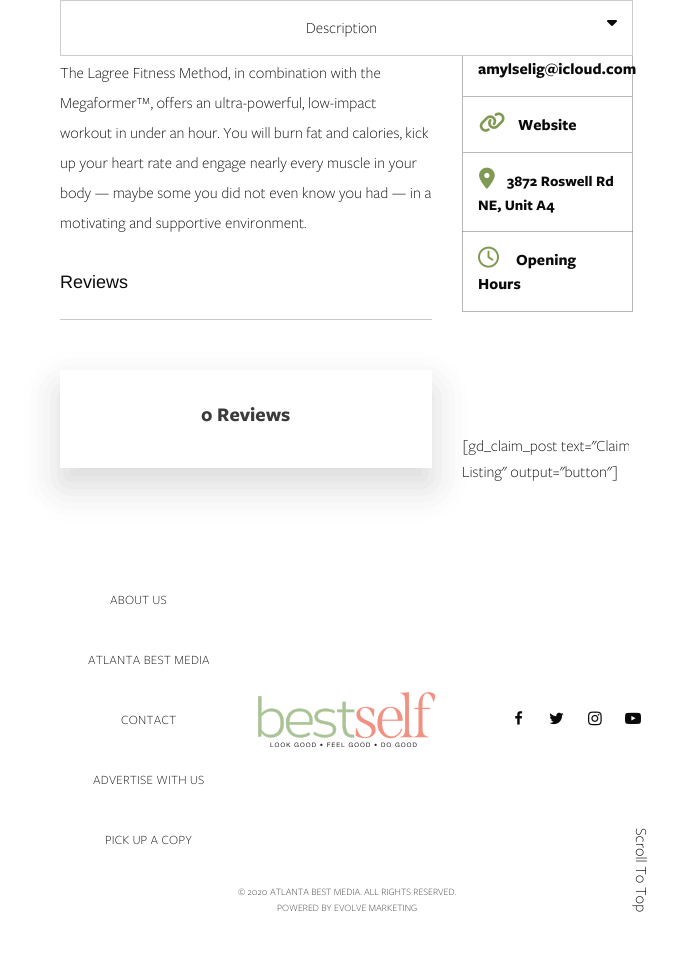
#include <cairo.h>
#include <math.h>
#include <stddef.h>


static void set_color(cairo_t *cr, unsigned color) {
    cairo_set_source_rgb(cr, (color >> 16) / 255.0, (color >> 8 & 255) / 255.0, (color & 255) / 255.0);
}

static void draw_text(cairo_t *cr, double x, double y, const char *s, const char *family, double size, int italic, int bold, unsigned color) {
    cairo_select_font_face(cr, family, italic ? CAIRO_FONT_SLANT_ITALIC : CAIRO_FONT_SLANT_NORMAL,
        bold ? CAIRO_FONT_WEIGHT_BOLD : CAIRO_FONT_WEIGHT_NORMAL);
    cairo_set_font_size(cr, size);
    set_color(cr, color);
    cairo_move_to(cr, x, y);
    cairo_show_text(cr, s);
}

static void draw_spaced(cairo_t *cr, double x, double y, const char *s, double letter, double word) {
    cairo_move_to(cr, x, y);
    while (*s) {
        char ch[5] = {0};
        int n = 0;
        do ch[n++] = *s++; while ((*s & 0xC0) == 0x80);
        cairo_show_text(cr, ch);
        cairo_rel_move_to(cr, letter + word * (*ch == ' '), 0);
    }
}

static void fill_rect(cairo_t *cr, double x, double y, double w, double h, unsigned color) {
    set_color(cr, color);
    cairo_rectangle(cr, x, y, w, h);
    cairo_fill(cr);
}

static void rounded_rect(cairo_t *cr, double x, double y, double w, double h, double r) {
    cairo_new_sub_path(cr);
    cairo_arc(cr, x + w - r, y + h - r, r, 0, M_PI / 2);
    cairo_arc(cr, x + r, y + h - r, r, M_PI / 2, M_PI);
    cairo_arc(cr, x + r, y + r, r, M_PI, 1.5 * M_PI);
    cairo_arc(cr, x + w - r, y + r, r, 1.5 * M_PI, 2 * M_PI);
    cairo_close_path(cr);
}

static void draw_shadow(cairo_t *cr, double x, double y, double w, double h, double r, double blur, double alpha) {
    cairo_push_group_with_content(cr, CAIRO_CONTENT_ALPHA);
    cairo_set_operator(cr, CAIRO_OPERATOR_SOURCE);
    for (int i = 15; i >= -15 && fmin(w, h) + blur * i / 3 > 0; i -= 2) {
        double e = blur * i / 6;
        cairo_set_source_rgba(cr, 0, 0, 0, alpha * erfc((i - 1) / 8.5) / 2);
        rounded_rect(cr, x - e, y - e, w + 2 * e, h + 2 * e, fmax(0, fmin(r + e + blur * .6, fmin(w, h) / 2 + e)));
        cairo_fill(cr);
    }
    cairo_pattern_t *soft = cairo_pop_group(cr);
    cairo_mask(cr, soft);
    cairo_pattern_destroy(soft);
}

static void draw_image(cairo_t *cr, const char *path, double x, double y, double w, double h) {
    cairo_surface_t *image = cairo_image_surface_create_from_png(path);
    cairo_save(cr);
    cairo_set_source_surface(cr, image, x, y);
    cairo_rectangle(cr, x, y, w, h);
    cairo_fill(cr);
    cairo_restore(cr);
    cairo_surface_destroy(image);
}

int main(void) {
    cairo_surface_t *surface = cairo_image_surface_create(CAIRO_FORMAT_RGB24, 693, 956);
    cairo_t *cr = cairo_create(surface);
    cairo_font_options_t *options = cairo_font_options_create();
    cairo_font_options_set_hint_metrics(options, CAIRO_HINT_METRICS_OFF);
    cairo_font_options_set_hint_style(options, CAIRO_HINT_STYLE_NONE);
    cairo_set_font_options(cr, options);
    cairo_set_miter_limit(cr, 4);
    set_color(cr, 0xFFFFFF);
    cairo_paint(cr);
    cairo_set_source_rgba(cr, 0.502, 0.502, 0.502, 0.56);
    cairo_new_path(cr);
    cairo_move_to(cr, 462, 96);
    cairo_line_to(cr, 462, 17);
    cairo_line_to(cr, 463, 18);
    cairo_line_to(cr, 463, 96);
    cairo_close_path(cr);
    cairo_fill(cr);
    fill_rect(cr, 462, 17, 1, 38, 0xFFFFFF);
    cairo_set_source_rgba(cr, 0.502, 0.502, 0.502, 0.56);
    cairo_new_path(cr);
    cairo_move_to(cr, 633, 17);
    cairo_line_to(cr, 633, 96);
    cairo_line_to(cr, 632, 96);
    cairo_line_to(cr, 632, 18);
    cairo_close_path(cr);
    cairo_fill(cr);
    cairo_rectangle(cr, 60.5, 0.5, 572, 55);
    set_color(cr, 0xCCCCCC);
    cairo_set_line_width(cr, 1);
    cairo_stroke(cr);
    draw_text(cr, 306, 33, "Description", "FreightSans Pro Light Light", 16, 0, 0, 0x0A0A0A);
    draw_image(cr, "assets/img1.png", 607, 20, 10, 6);
    draw_text(cr, 60, 78, "The Lagree Fitness Method, in combination with the", "FreightSans Pro Light Light", 16, 0, 0, 0x0A0A0A);
    draw_text(cr, 60, 108, "Megaformer™, offers an ultra-powerful, low-impact", "FreightSans Pro Light Light", 16, 0, 0, 0x0A0A0A);
    draw_spaced(cr, 60, 138, "workout in under an hour. You will burn fat and calories, kick", 0, -0.25);
    draw_text(cr, 60, 168, "up your heart rate and engage nearly every muscle in your", "FreightSans Pro Light Light", 16, 0, 0, 0x0A0A0A);
    draw_text(cr, 60, 198, "body — maybe some you did not even know you had — in a", "FreightSans Pro Light Light", 16, 0, 0, 0x0A0A0A);
    draw_text(cr, 60, 228, "motivating and supportive environment.", "FreightSans Pro Light Light", 16, 0, 0, 0x0A0A0A);
    draw_text(cr, 60, 288, "Reviews", "Liberation Sans", 18, 0, 0, 0x0A0A0A);
    fill_rect(cr, 60, 319, 372, 1, 0xCACACA);
    cairo_save(cr);
    cairo_set_fill_rule(cr, CAIRO_FILL_RULE_EVEN_ODD);
    cairo_new_path(cr);
    cairo_move_to(cr, 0, 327);
    cairo_line_to(cr, 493, 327);
    cairo_line_to(cr, 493, 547);
    cairo_line_to(cr, 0, 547);
    cairo_close_path(cr);
    cairo_move_to(cr, 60, 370);
    cairo_line_to(cr, 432, 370);
    cairo_line_to(cr, 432, 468);
    cairo_line_to(cr, 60, 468);
    cairo_close_path(cr);
    cairo_clip(cr);
    set_color(cr, 0x0A0000);
    draw_shadow(cr, 60, 388, 372, 98, 0, 20, 0.15);
    cairo_restore(cr);
    draw_text(cr, 201, 421, "0 Reviews", "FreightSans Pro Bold", 20, 0, 1, 0x3B3B3B);
    draw_text(cr, 478, 74, "amylselig@icloud.com", "FreightSans Pro Bold", 16, 0, 1, 0x0A0A0A);
    set_color(cr, 0xB8B8B8);
    cairo_new_path(cr);
    cairo_move_to(cr, 462, 96);
    cairo_line_to(cr, 633, 96);
    cairo_line_to(cr, 632, 97);
    cairo_line_to(cr, 463, 97);
    cairo_close_path(cr);
    cairo_fill(cr);
    cairo_set_source_rgba(cr, 0.502, 0.502, 0.502, 0.56);
    cairo_new_path(cr);
    cairo_move_to(cr, 633, 96);
    cairo_line_to(cr, 633, 152);
    cairo_line_to(cr, 632, 152);
    cairo_line_to(cr, 632, 97);
    cairo_close_path(cr);
    cairo_fill(cr);
    cairo_new_path(cr);
    cairo_move_to(cr, 462, 152);
    cairo_line_to(cr, 462, 96);
    cairo_line_to(cr, 463, 97);
    cairo_line_to(cr, 463, 152);
    cairo_close_path(cr);
    cairo_fill(cr);
    draw_image(cr, "assets/img2.png", 479, 112, 26, 20);
    draw_text(cr, 518, 130, "Website", "FreightSans Pro Bold", 16, 0, 1, 0x0A0A0A);
    set_color(cr, 0xB8B8B8);
    cairo_new_path(cr);
    cairo_move_to(cr, 462, 152);
    cairo_line_to(cr, 633, 152);
    cairo_line_to(cr, 632, 153);
    cairo_line_to(cr, 463, 153);
    cairo_close_path(cr);
    cairo_fill(cr);
    cairo_set_source_rgba(cr, 0.502, 0.502, 0.502, 0.56);
    cairo_new_path(cr);
    cairo_move_to(cr, 633, 152);
    cairo_line_to(cr, 633, 232);
    cairo_line_to(cr, 632, 232);
    cairo_line_to(cr, 632, 153);
    cairo_close_path(cr);
    cairo_fill(cr);
    cairo_new_path(cr);
    cairo_move_to(cr, 462, 232);
    cairo_line_to(cr, 462, 152);
    cairo_line_to(cr, 463, 153);
    cairo_line_to(cr, 463, 232);
    cairo_close_path(cr);
    cairo_fill(cr);
    draw_image(cr, "assets/img3.png", 479, 167, 16, 22);
    draw_text(cr, 507, 186, "3872 Roswell Rd", "FreightSans Pro Bold", 15, 0, 1, 0x0A0A0A);
    draw_text(cr, 478, 210, "NE, Unit A4", "FreightSans Pro Bold", 15, 0, 1, 0x0A0A0A);
    cairo_rectangle(cr, 462.5, 231.5, 170, 80);
    cairo_set_source_rgba(cr, 0.502, 0.502, 0.502, 0.56);
    cairo_stroke(cr);
    draw_image(cr, "assets/img4.png", 478, 246, 21, 22);
    draw_text(cr, 516, 265, "Opening", "FreightSans Pro Bold", 16, 0, 1, 0x0A0A0A);
    draw_text(cr, 478, 289, "Hours", "FreightSans Pro Bold", 16, 0, 1, 0x0A0A0A);
    draw_text(cr, 462, 451, "[gd_claim_post text=\"Claim", "FreightSans Pro Light Light", 16, 0, 0, 0x0A0A0A);
    draw_text(cr, 462, 477, "Listing\" output=\"button\"]", "FreightSans Pro Light Light", 16, 0, 0, 0x0A0A0A);
    cairo_set_font_size(cr, 13);
    draw_spaced(cr, 110, 604, "ABOUT US", 0.25, 0);
    draw_spaced(cr, 88, 664, "ATLANTA BEST MEDIA", 0.25, 0);
    draw_spaced(cr, 121, 724, "CONTACT", 0.25, 0);
    draw_spaced(cr, 93, 784, "ADVERTISE WITH US", 0.25, 0);
    draw_spaced(cr, 105, 844, "PICK UP A COPY", 0.25, 0);
    draw_image(cr, "assets/img5.png", 258, 692, 177, 55);
    draw_image(cr, "assets/img6.png", 515, 711, 8, 14);
    draw_image(cr, "assets/img7.png", 549, 712, 15, 13);
    draw_image(cr, "assets/img8.png", 588, 711, 14, 15);
    draw_image(cr, "assets/img9.png", 625, 712, 16, 12);
    draw_text(cr, 238, 895, "© 2020 ATLANTA BEST MEDIA. ALL RIGHTS RESERVED.", "FreightSans Pro Light Light", 10, 0, 0, 0x3B3B3B);
    draw_text(cr, 277, 911, "POWERED BY", "FreightSans Pro Light Light", 10, 0, 0, 0x3B3B3B);
    draw_text(cr, 334, 911, "EVOLVE MARKETING", "FreightSans Pro Light Light", 10, 0, 0, 0x3B3B3B);
    cairo_save(cr);
    cairo_translate(cr, 636, 828);
    cairo_rotate(cr, 90 * M_PI / 180);
    draw_text(cr, 0, 0, "Scroll To Top", "FreightSans Pro Light Light", 16, 0, 0, 0x0A0A0A);
    cairo_restore(cr);
    cairo_surface_write_to_png(surface, "output.png");
    cairo_font_options_destroy(options);
    cairo_destroy(cr);
    cairo_surface_destroy(surface);
    return 0;
}
